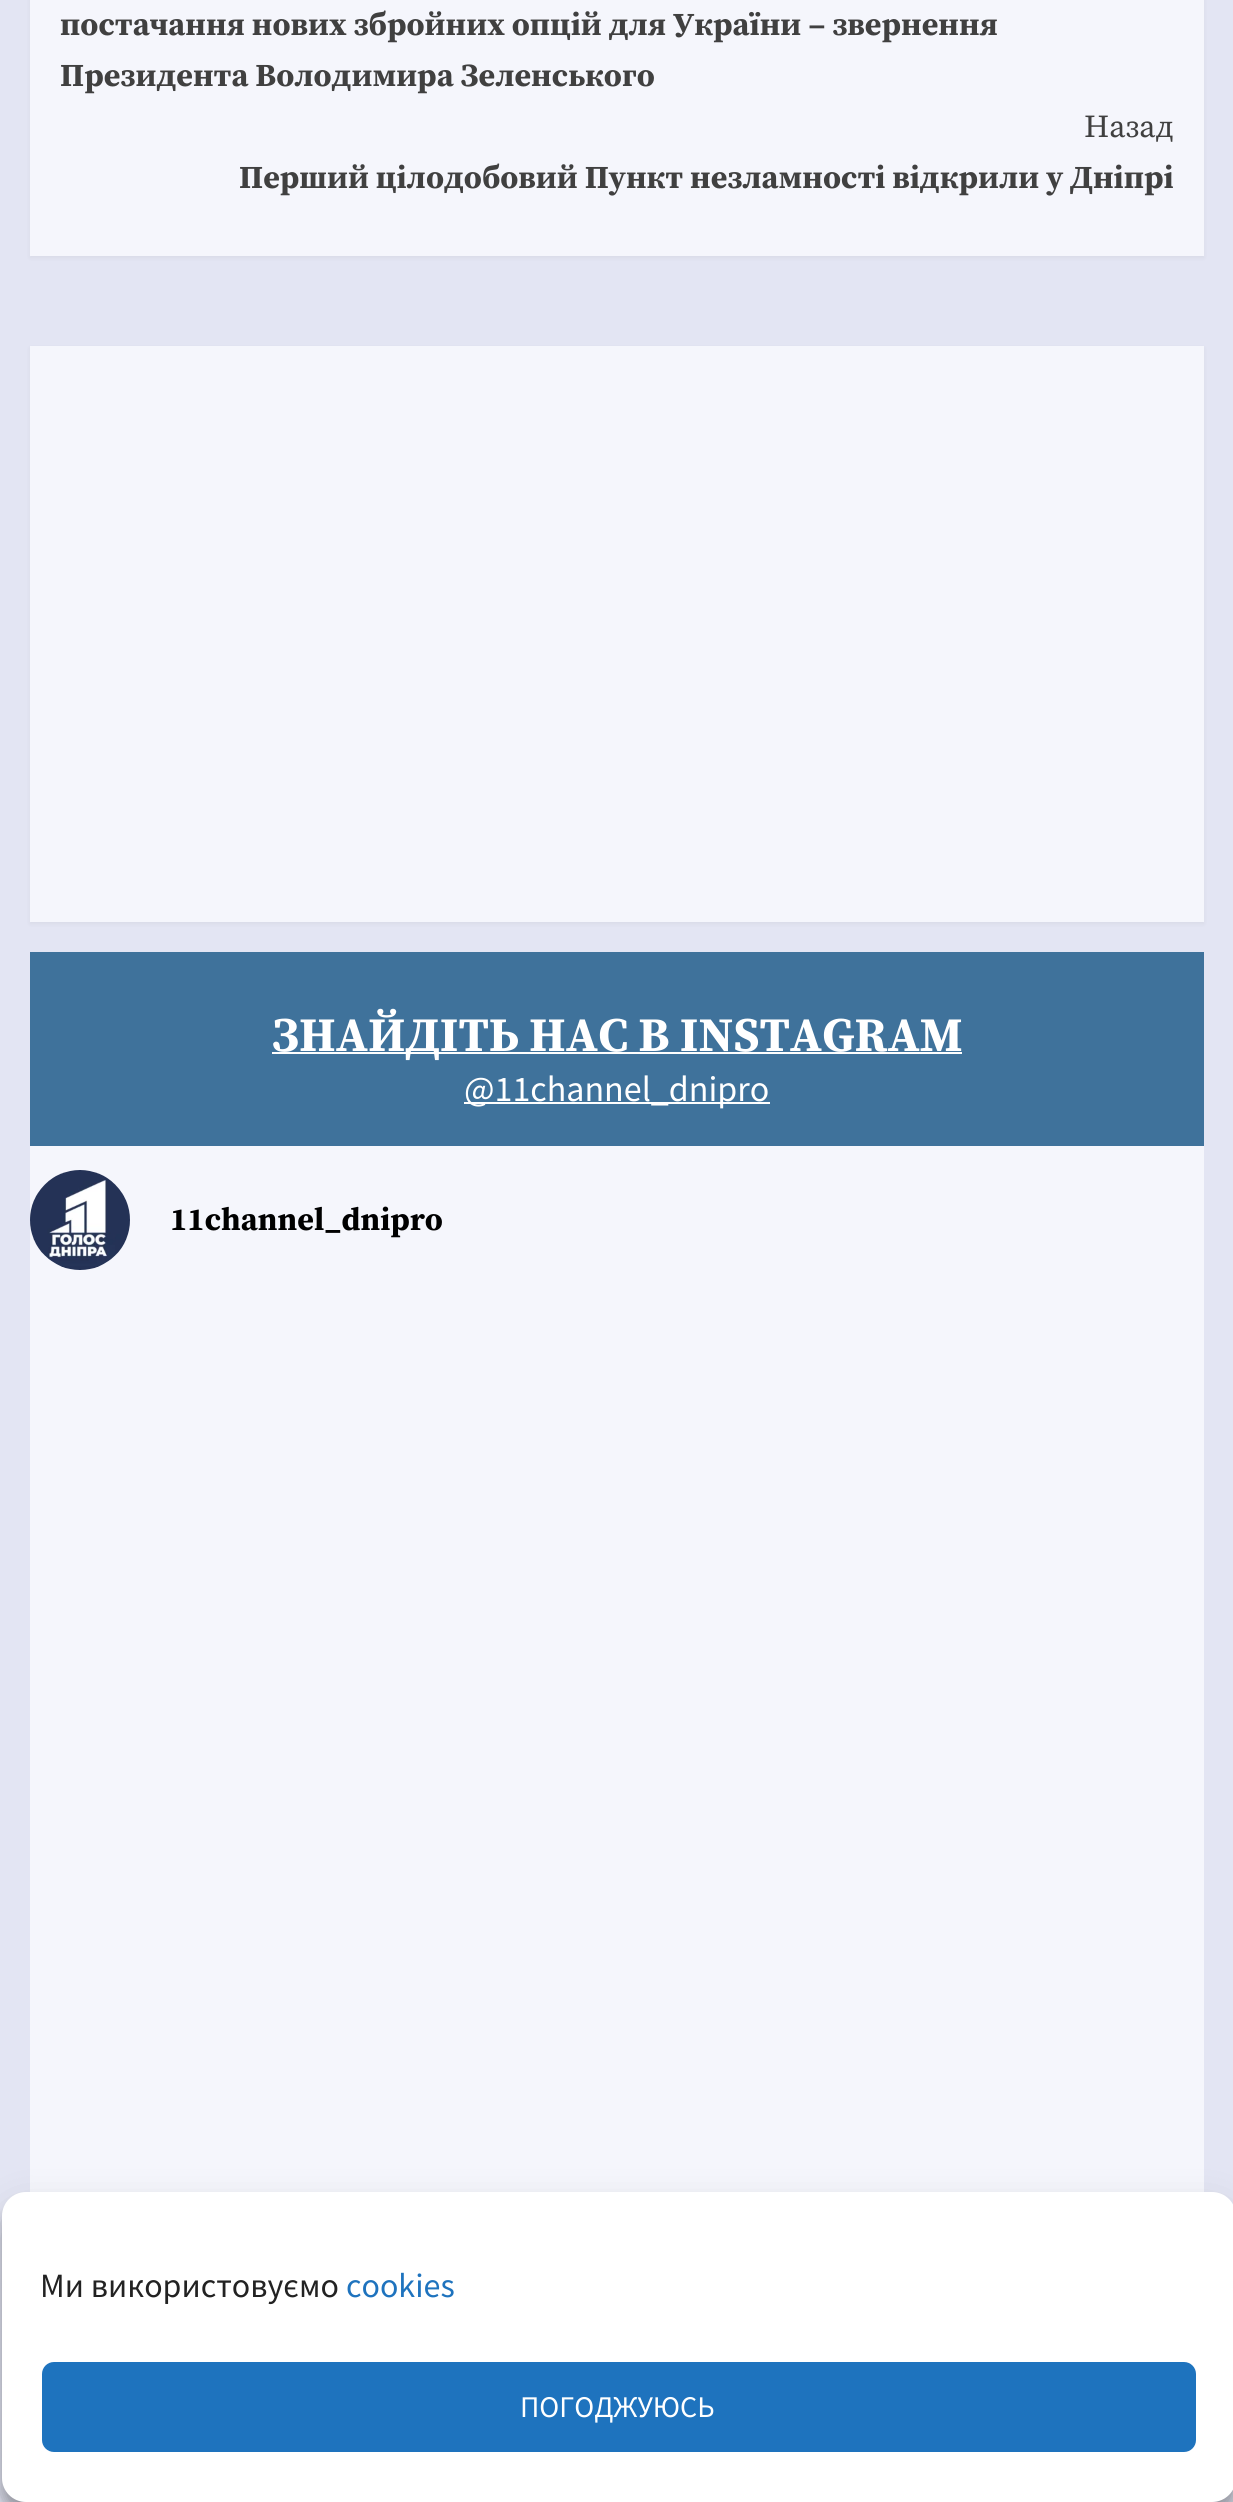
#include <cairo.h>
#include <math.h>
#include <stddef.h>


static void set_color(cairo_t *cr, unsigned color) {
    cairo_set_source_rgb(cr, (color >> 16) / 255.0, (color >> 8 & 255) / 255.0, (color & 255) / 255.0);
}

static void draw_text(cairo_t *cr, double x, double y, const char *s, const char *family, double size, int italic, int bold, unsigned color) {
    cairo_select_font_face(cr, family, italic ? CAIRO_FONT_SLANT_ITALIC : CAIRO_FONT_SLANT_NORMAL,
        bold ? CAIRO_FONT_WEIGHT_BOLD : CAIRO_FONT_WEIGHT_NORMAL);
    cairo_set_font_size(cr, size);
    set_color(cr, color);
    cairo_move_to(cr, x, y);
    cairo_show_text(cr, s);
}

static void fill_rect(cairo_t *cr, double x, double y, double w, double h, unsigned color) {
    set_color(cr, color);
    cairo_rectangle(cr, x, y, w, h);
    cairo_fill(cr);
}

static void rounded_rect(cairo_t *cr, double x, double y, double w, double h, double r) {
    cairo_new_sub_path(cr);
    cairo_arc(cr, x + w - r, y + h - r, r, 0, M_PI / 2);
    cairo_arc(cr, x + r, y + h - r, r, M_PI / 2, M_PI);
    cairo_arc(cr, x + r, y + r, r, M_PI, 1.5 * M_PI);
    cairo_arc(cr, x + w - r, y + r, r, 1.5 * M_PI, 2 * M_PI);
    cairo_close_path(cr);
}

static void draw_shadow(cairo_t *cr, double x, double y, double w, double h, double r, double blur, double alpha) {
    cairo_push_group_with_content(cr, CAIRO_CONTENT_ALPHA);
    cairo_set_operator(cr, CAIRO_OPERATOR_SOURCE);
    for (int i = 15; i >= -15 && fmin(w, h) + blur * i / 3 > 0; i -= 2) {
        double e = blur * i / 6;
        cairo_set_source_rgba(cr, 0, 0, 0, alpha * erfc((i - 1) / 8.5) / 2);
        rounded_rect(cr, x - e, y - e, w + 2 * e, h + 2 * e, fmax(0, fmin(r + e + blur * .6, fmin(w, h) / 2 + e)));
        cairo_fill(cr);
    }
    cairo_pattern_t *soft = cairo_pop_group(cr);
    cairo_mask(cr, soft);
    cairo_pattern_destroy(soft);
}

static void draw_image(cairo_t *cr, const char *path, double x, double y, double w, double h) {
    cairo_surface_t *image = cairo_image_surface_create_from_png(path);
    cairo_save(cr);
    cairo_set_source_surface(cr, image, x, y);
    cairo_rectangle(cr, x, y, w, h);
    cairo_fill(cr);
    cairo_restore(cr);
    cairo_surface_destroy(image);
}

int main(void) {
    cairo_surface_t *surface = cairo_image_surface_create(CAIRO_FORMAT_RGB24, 1233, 2502);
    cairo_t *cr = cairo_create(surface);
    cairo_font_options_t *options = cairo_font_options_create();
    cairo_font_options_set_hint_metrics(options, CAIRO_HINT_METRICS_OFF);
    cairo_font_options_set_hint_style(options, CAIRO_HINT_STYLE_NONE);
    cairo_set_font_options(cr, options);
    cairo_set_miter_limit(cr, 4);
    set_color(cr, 0xE3E5F3);
    cairo_paint(cr);
    set_color(cr, 0x000000);
    draw_shadow(cr, 30, -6, 1174, 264, 0, 2, 0.05);
    fill_rect(cr, 30, 0, 1174, 256, 0xF5F6FC);
    draw_text(cr, 60, 35, "постачання нових збройних опцій для України – звернення", "Source Serif Pro", 32, 0, 1, 0x404040);
    draw_text(cr, 60, 86, "Президента Володимира Зеленського", "Source Serif Pro", 32, 0, 1, 0x404040);
    draw_text(cr, 1084, 137, "Назад", "Source Serif Pro", 32, 0, 0, 0x404040);
    draw_text(cr, 239, 188, "Перший цілодобовий Пункт незламності відкрили у Дніпрі", "Source Serif Pro", 32, 0, 1, 0x404040);
    set_color(cr, 0x000000);
    draw_shadow(cr, 30, 348, 1174, 576, 0, 2, 0.05);
    fill_rect(cr, 30, 346, 1174, 576, 0xF5F6FC);
    fill_rect(cr, 30, 1146, 1174, 1046, 0xF5F6FC);
    fill_rect(cr, 30, 952, 1174, 194, 0x3F729B);
    fill_rect(cr, 272, 1052, 690, 2, 0xFFFFFF);
    draw_text(cr, 272, 1051, "ЗНАЙДІТЬ НАС В INSTAGRAM", "Source Serif Pro", 48, 0, 1, 0xFFFFFF);
    fill_rect(cr, 464, 1102, 306, 2, 0xFFFFFF);
    draw_text(cr, 464, 1101, "@11channel_dnipro", "Source Sans Pro", 36, 0, 0, 0xFFFFFF);
    draw_image(cr, "assets/img1.png", 30, 1170, 100, 100);
    draw_text(cr, 170, 1230, "11channel_dnipro", "Source Serif Pro", 32, 0, 1, 0x000000);
    set_color(cr, 0x000000);
    draw_shadow(cr, 2, 2204, 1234, 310, 24, 6, 0.23);
    draw_shadow(cr, 2, 2212, 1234, 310, 24, 20, 0.19);
    set_color(cr, 0xFFFFFF);
    rounded_rect(cr, 2, 2192, 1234, 310, 24);
    cairo_fill(cr);
    draw_text(cr, 40, 2297, "Ми використовуємо", "Source Sans Pro", 34, 0, 0, 0x222222);
    draw_text(cr, 346, 2297, "cookies", "Source Sans Pro", 34, 0, 0, 0x1E73BE);
    rounded_rect(cr, 43, 2363, 1152, 88, 11);
    cairo_fill_preserve(cr);
    cairo_stroke(cr);
    draw_text(cr, 520, 2417, "ПОГОДЖУЮСЬ", "Source Sans Pro", 30, 0, 0, 0xFFFFFF);
    cairo_surface_write_to_png(surface, "output.png");
    cairo_font_options_destroy(options);
    cairo_destroy(cr);
    cairo_surface_destroy(surface);
    return 0;
}
